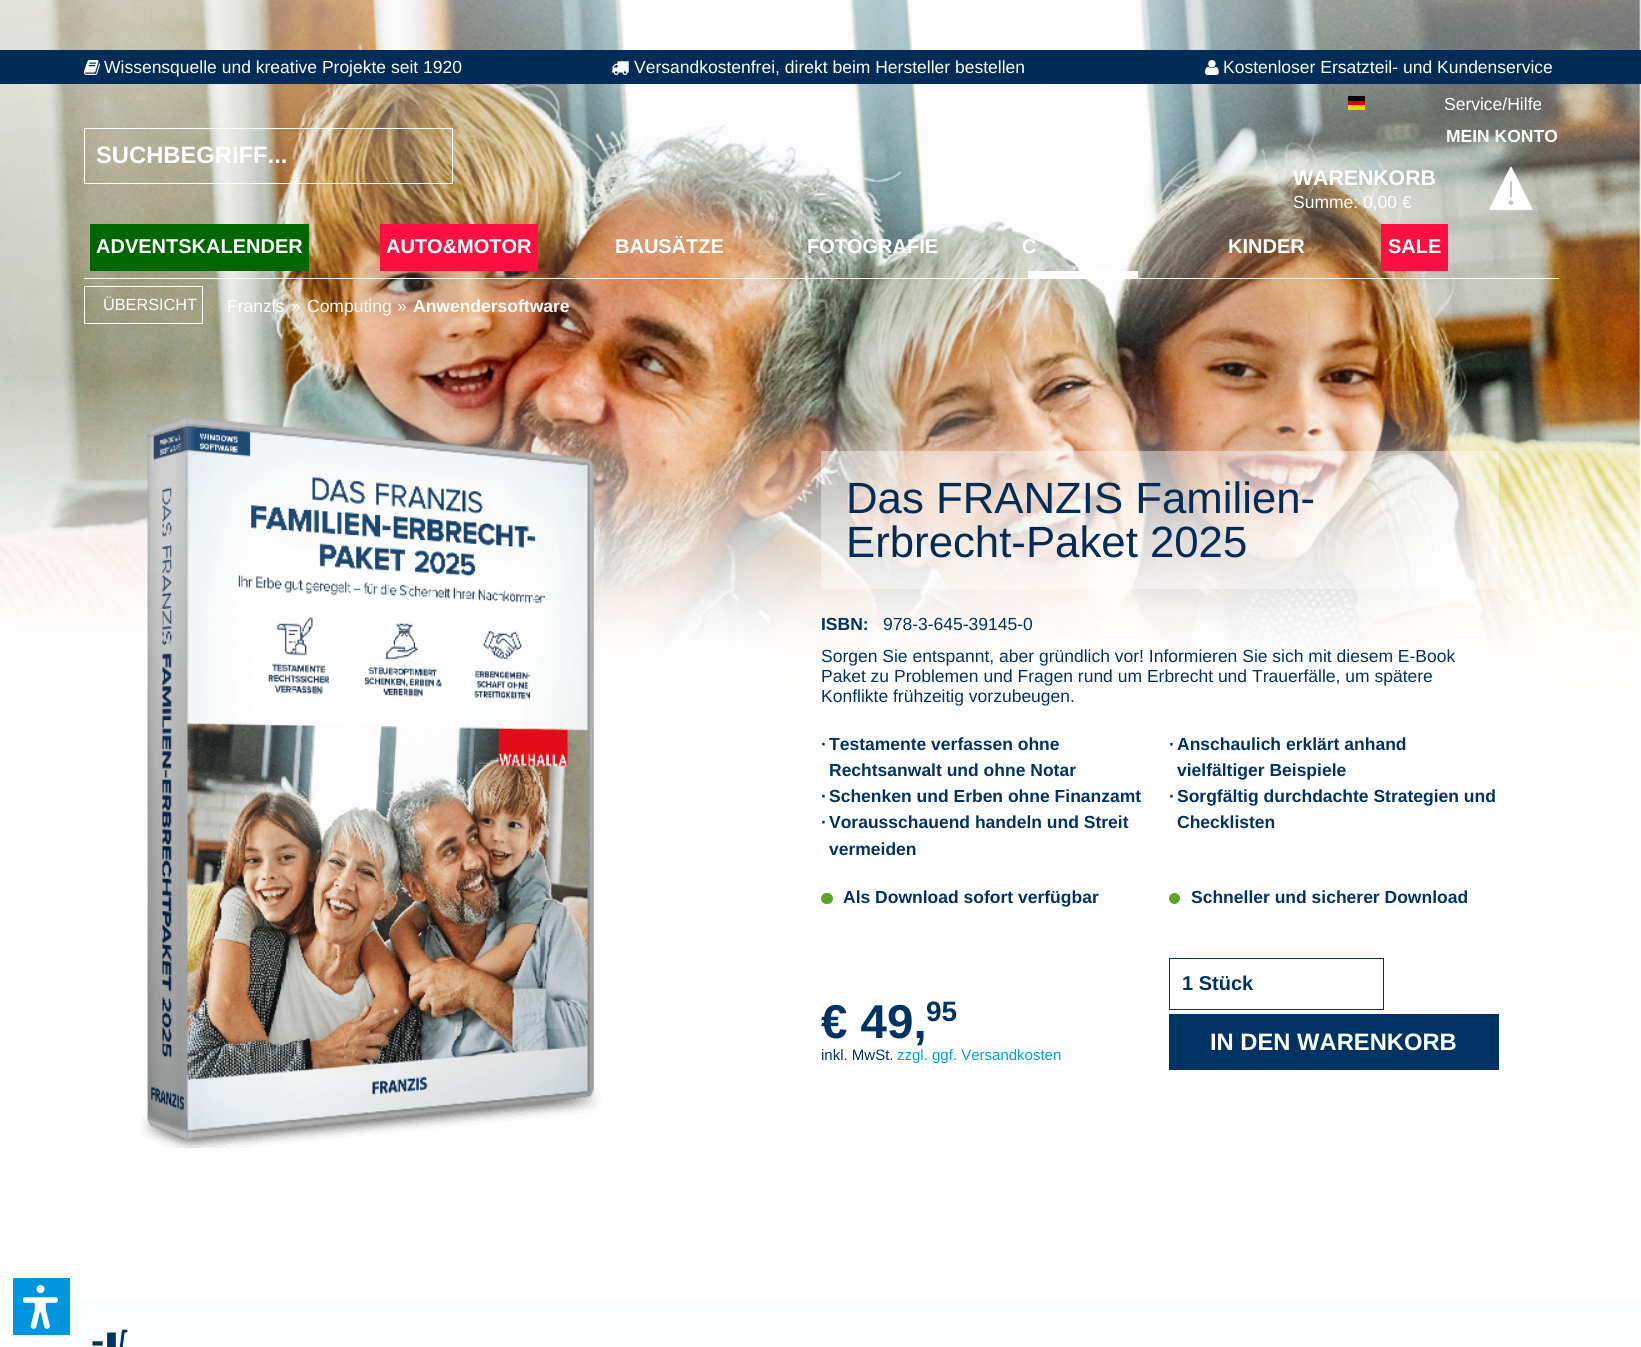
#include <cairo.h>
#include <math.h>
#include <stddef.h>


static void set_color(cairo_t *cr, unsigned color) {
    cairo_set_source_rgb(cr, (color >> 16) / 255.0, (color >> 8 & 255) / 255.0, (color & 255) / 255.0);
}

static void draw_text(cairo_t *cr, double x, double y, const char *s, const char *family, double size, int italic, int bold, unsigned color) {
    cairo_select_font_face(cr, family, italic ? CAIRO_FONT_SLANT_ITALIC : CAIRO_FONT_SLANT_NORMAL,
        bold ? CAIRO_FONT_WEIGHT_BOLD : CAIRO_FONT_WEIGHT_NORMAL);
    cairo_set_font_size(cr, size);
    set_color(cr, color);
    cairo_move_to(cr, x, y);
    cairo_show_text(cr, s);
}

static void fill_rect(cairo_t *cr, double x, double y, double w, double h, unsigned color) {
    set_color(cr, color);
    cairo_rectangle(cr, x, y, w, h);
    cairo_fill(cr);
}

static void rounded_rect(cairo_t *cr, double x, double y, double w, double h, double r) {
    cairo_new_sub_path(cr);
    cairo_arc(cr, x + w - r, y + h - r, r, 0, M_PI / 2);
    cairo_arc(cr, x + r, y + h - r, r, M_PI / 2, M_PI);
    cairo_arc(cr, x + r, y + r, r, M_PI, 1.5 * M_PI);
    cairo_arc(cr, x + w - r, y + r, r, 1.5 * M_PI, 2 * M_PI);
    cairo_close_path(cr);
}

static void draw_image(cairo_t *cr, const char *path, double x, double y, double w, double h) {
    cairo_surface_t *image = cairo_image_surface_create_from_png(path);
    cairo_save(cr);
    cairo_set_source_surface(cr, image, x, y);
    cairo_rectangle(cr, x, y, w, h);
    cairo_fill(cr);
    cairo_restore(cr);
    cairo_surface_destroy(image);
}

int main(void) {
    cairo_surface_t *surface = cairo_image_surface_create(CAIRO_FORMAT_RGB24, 1641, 1347);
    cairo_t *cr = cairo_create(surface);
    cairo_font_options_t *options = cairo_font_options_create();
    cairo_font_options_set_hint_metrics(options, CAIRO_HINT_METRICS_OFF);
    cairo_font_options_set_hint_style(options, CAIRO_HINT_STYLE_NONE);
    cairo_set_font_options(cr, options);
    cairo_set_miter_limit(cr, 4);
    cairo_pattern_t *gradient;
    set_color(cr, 0xFFFFFF);
    cairo_paint(cr);
    draw_image(cr, "assets/img1.png", 0, 0, 1641, 706);
    gradient = cairo_pattern_create_linear(821, 0, 821, 750);
    cairo_pattern_add_color_stop_rgba(gradient, 0.5, 1, 1, 1, 0);
    cairo_pattern_add_color_stop_rgba(gradient, 0.95, 1, 1, 1, 1);
    cairo_set_source(cr, gradient);
    cairo_pattern_destroy(gradient);
    cairo_rectangle(cr, 0, 382, 1641, 324);
    cairo_fill(cr);
    fill_rect(cr, 0, 50, 1641, 34, 0x012C57);
    draw_image(cr, "assets/img2.png", 84, 60, 16, 15);
    draw_text(cr, 104, 73, "Wissensquelle und kreative Projekte seit 1920", "Liberation Sans", 17.5, 0, 0, 0xFFFFFF);
    draw_image(cr, "assets/img3.png", 611, 61, 18, 14);
    draw_text(cr, 634, 73, "Versandkostenfrei, direkt beim Hersteller bestellen", "Liberation Sans", 17.5, 0, 0, 0xFFFFFF);
    draw_image(cr, "assets/img4.png", 1205, 60, 14, 15);
    draw_text(cr, 1223, 73, "Kostenloser Ersatzteil- und Kundenservice", "Liberation Sans", 17.5, 0, 0, 0xFFFFFF);
    fill_rect(cr, 1348, 96, 17, 5, 0x000000);
    fill_rect(cr, 1348, 101, 17, 4, 0xDD0000);
    fill_rect(cr, 1348, 105, 17, 5, 0xFFCE00);
    draw_text(cr, 1444, 110, "Service/Hilfe", "Liberation Sans", 17.5, 0, 0, 0xFFFFFF);
    cairo_rectangle(cr, 84.5, 128.5, 368, 55);
    cairo_set_line_width(cr, 1);
    cairo_stroke(cr);
    draw_text(cr, 96, 163, "SUCHBEGRIFF...", "Liberation Sans", 23.75, 0, 1, 0xFFFFFF);
    draw_text(cr, 1446, 142, "MEIN KONTO", "Liberation Sans", 17.5, 0, 1, 0xFFFFFF);
    draw_text(cr, 1293, 185, "WARENKORB", "Liberation Sans", 21.25, 0, 1, 0xFFFFFF);
    draw_text(cr, 1293, 208, "Summe: 0,00 €", "Liberation Sans", 17.5, 0, 0, 0xFFFFFF);
    draw_image(cr, "assets/img5.png", 1489, 166, 44, 44);
    fill_rect(cr, 84, 278, 1475, 1, 0xFFFFFF);
    fill_rect(cr, 90, 224, 219, 47, 0x006700);
    draw_text(cr, 96, 253, "ADVENTSKALENDER", "Liberation Sans", 20, 0, 1, 0xFFFFFF);
    fill_rect(cr, 380, 224, 158, 47, 0xFF0F41);
    draw_text(cr, 386, 253, "AUTO&MOTOR", "Liberation Sans", 20, 0, 1, 0xFFFFFF);
    draw_text(cr, 615, 253, "BAUSÄTZE", "Liberation Sans", 20, 0, 1, 0xFFFFFF);
    draw_text(cr, 807, 253, "FOTOGRAFIE", "Liberation Sans", 20, 0, 1, 0xFFFFFF);
    draw_text(cr, 1022, 253, "C", "Liberation Sans", 20, 0, 1, 0xFFFFFF);
    fill_rect(cr, 1028, 271, 110, 7, 0xFFFFFF);
    draw_text(cr, 1228, 253, "KINDER", "Liberation Sans", 20, 0, 1, 0xFFFFFF);
    fill_rect(cr, 1381, 224, 67, 47, 0xFF0F41);
    draw_text(cr, 1388, 253, "SALE", "Liberation Sans", 20, 0, 1, 0xFFFFFF);
    cairo_rectangle(cr, 84.5, 286.5, 118, 37);
    cairo_stroke(cr);
    draw_text(cr, 103, 310, "ÜBERSICHT", "Liberation Sans", 16.25, 0, 0, 0xFFFFFF);
    draw_text(cr, 227, 312, "Franzis", "Liberation Sans", 17.5, 0, 0, 0xFFFFFF);
    draw_text(cr, 291, 312, "»", "Liberation Sans", 17.5, 0, 0, 0xFFFFFF);
    draw_text(cr, 307, 312, "Computing", "Liberation Sans", 17.5, 0, 0, 0xFFFFFF);
    draw_text(cr, 397, 312, "»", "Liberation Sans", 17.5, 0, 0, 0xFFFFFF);
    draw_text(cr, 413, 312, "Anwendersoftware", "Liberation Sans", 17.5, 0, 1, 0xFFFFFF);
    draw_image(cr, "assets/img6.png", 141, 416, 461, 732);
    cairo_set_source_rgba(cr, 1, 1, 1, 0.42);
    cairo_rectangle(cr, 821, 451, 678, 138);
    cairo_fill(cr);
    draw_text(cr, 846, 513, "Das FRANZIS Familien-", "Liberation Sans", 43.75, 0, 0, 0x012C57);
    draw_text(cr, 846, 557, "Erbrecht-Paket 2025", "Liberation Sans", 43.75, 0, 0, 0x012C57);
    draw_text(cr, 821, 630, "ISBN:", "Liberation Sans", 17.5, 0, 1, 0x003264);
    draw_text(cr, 883, 630, "978-3-645-39145-0", "Liberation Sans", 17.5, 0, 0, 0x003264);
    draw_text(cr, 821, 662, "Sorgen Sie entspannt, aber gründlich vor! Informieren Sie sich mit diesem E-Book", "Liberation Sans", 17.5, 0, 0, 0x003264);
    draw_text(cr, 821, 682, "Paket zu Problemen und Fragen rund um Erbrecht und Trauerfälle, um spätere", "Liberation Sans", 17.5, 0, 0, 0x003264);
    draw_text(cr, 821, 702, "Konflikte frühzeitig vorzubeugen.", "Liberation Sans", 17.5, 0, 0, 0x003264);
    draw_text(cr, 821, 750, "·", "Liberation Sans", 17.5, 0, 1, 0x003264);
    draw_text(cr, 829, 750, "Testamente verfassen ohne", "Liberation Sans", 17.5, 0, 1, 0x003264);
    draw_text(cr, 829, 776, "Rechtsanwalt und ohne Notar", "Liberation Sans", 17.5, 0, 1, 0x003264);
    draw_text(cr, 1169, 750, "·", "Liberation Sans", 17.5, 0, 1, 0x003264);
    draw_text(cr, 1177, 750, "Anschaulich erklärt anhand", "Liberation Sans", 17.5, 0, 1, 0x003264);
    draw_text(cr, 1177, 776, "vielfältiger Beispiele", "Liberation Sans", 17.5, 0, 1, 0x003264);
    draw_text(cr, 821, 802, "·", "Liberation Sans", 17.5, 0, 1, 0x003264);
    draw_text(cr, 829, 802, "Schenken und Erben ohne Finanzamt", "Liberation Sans", 17.5, 0, 1, 0x003264);
    draw_text(cr, 1169, 802, "·", "Liberation Sans", 17.5, 0, 1, 0x003264);
    draw_text(cr, 1177, 802, "Sorgfältig durchdachte Strategien und", "Liberation Sans", 17.5, 0, 1, 0x003264);
    draw_text(cr, 1177, 828, "Checklisten", "Liberation Sans", 17.5, 0, 1, 0x003264);
    draw_text(cr, 821, 828, "·", "Liberation Sans", 17.5, 0, 1, 0x003264);
    draw_text(cr, 829, 828, "Vorausschauend handeln und Streit", "Liberation Sans", 17.5, 0, 1, 0x003264);
    draw_text(cr, 829, 855, "vermeiden", "Liberation Sans", 17.5, 0, 1, 0x003264);
    set_color(cr, 0x5EA526);
    rounded_rect(cr, 821, 893, 12, 11, 5.5);
    cairo_fill(cr);
    draw_text(cr, 843, 903, "Als Download sofort verfügbar", "Liberation Sans", 17.5, 0, 1, 0x003264);
    set_color(cr, 0x5EA526);
    cairo_new_path(cr);
    cairo_arc(cr, 1174.5, 898.5, 5.5, 0, 2 * M_PI);
    cairo_fill(cr);
    draw_text(cr, 1191, 903, "Schneller und sicherer Download", "Liberation Sans", 17.5, 0, 1, 0x003264);
    draw_text(cr, 821, 1038, "€ 49,", "Liberation Sans", 47.5, 0, 1, 0x003264);
    draw_text(cr, 926, 1021, "95", "Liberation Sans", 28, 0, 1, 0x003264);
    draw_text(cr, 821, 1060, "inkl. MwSt.", "Liberation Sans", 15, 0, 0, 0x003264);
    draw_text(cr, 897, 1060, "zzgl. ggf. Versandkosten", "Liberation Sans", 15, 0, 0, 0x009FE3);
    cairo_rectangle(cr, 1169.5, 958.5, 214, 51);
    set_color(cr, 0x003264);
    cairo_stroke(cr);
    draw_text(cr, 1182, 990, "1 Stück", "Liberation Sans", 20, 0, 1, 0x003264);
    fill_rect(cr, 1169, 1014, 330, 56, 0x003264);
    draw_text(cr, 1210, 1050, "IN DEN WARENKORB", "Liberation Sans", 23.75, 0, 1, 0xFFFFFF);
    fill_rect(cr, 0, 1301, 1641, 46, 0xFCFDFF);
    draw_image(cr, "assets/img7.png", 92, 1329, 36, 18);
    fill_rect(cr, 13, 1278, 57, 57, 0x0096DE);
    draw_image(cr, "assets/img8.png", 23, 1285, 35, 44);
    cairo_surface_write_to_png(surface, "output.png");
    cairo_font_options_destroy(options);
    cairo_destroy(cr);
    cairo_surface_destroy(surface);
    return 0;
}
